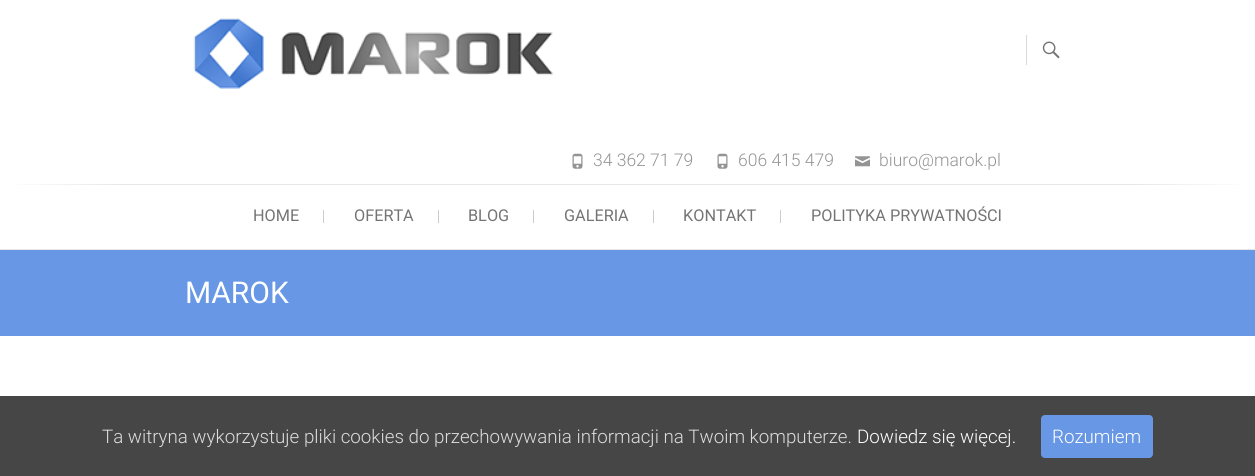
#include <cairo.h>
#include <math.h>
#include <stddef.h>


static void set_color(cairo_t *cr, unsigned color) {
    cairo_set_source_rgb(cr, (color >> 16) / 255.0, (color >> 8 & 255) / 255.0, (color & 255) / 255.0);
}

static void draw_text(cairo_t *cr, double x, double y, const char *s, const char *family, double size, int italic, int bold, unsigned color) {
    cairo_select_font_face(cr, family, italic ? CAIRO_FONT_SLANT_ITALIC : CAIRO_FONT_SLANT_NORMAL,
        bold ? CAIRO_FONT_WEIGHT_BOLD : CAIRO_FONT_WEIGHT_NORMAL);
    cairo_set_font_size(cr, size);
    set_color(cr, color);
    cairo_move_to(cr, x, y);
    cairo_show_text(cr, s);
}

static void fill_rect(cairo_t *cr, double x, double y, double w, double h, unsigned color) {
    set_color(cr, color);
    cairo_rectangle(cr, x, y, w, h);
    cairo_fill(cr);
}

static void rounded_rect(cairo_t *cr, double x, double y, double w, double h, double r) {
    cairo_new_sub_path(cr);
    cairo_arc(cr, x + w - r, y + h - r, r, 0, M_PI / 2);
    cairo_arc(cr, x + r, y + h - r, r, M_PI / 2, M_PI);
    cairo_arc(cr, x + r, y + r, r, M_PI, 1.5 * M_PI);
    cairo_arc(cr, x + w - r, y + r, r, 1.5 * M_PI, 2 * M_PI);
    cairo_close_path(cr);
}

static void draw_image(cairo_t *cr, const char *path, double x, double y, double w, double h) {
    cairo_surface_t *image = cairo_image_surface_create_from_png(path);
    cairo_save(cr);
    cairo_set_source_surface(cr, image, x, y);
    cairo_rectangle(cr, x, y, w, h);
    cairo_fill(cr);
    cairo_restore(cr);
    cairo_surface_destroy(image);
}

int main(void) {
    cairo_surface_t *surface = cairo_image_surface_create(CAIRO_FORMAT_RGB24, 1255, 476);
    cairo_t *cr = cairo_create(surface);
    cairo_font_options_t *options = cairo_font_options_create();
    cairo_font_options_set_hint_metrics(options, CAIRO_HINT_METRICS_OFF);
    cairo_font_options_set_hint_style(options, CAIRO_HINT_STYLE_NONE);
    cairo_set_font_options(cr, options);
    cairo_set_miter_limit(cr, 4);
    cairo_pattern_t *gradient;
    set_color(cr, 0xFFFFFF);
    cairo_paint(cr);
    draw_image(cr, "assets/img1.png", 193, 18, 360, 71);
    fill_rect(cr, 1026, 35, 1, 30, 0xD9D9D9);
    draw_image(cr, "assets/img2.png", 1042, 41, 18, 18);
    draw_image(cr, "assets/img3.png", 572, 153, 11, 16);
    draw_text(cr, 593, 166, "34 362 71 79", "Roboto Light", 17.5, 0, 0, 0x949494);
    draw_image(cr, "assets/img3.png", 717, 153, 11, 16);
    draw_text(cr, 738, 166, "606 415 479", "Roboto Light", 17.5, 0, 0, 0x949494);
    draw_image(cr, "assets/img4.png", 855, 156, 15, 11);
    draw_text(cr, 879, 166, "biuro@marok.pl", "Roboto Light", 17.5, 0, 0, 0x949494);
    fill_rect(cr, 0, 249, 1255, 1, 0xE6E6E6);
    gradient = cairo_pattern_create_linear(0, 184, 1255, 184);
    cairo_pattern_add_color_stop_rgba(gradient, 0, 1, 1, 1, 1);
    cairo_pattern_add_color_stop_rgba(gradient, 0.1, 0.902, 0.902, 0.902, 1);
    cairo_pattern_add_color_stop_rgba(gradient, 0.9, 0.902, 0.902, 0.902, 1);
    cairo_pattern_add_color_stop_rgba(gradient, 1, 1, 1, 1, 1);
    cairo_set_source(cr, gradient);
    cairo_pattern_destroy(gradient);
    cairo_rectangle(cr, 13, 184, 1229, 1);
    cairo_fill(cr);
    draw_text(cr, 253, 221, "HOME", "Roboto", 16.25, 0, 0, 0x747474);
    fill_rect(cr, 323, 210, 1, 13, 0xCCCCCC);
    draw_text(cr, 354, 221, "OFERTA", "Roboto", 16.25, 0, 0, 0x747474);
    fill_rect(cr, 438, 210, 1, 13, 0xCCCCCC);
    draw_text(cr, 468, 221, "BLOG", "Roboto", 16.25, 0, 0, 0x747474);
    fill_rect(cr, 533, 210, 1, 13, 0xCCCCCC);
    draw_text(cr, 564, 221, "GALERIA", "Roboto", 16.25, 0, 0, 0x747474);
    fill_rect(cr, 653, 210, 1, 13, 0xCCCCCC);
    draw_text(cr, 683, 221, "KONTAKT", "Roboto", 16.25, 0, 0, 0x747474);
    fill_rect(cr, 780, 210, 1, 13, 0xCCCCCC);
    draw_text(cr, 811, 221, "POLITYKA PRYWATNOŚCI", "Roboto", 16.25, 0, 0, 0x747474);
    fill_rect(cr, 0, 250, 1255, 86, 0x6897E5);
    draw_text(cr, 185, 303, "MAROK", "Roboto", 30, 0, 0, 0xFFFFFF);
    fill_rect(cr, 0, 396, 1255, 80, 0x464646);
    draw_text(cr, 102, 443, "Ta witryna wykorzystuje pliki cookies do przechowywania informacji na Twoim komputerze.", "Roboto Light", 18.75, 0, 0, 0xDDDDDD);
    draw_text(cr, 857, 443, "Dowiedz się więcej.", "Roboto Light", 18.75, 0, 0, 0xFFFFFF);
    set_color(cr, 0x6897E5);
    rounded_rect(cr, 1041, 415, 112, 43, 4);
    cairo_fill(cr);
    draw_text(cr, 1052, 443, "Rozumiem", "Roboto Light", 18.75, 0, 0, 0xFFFFFF);
    cairo_surface_write_to_png(surface, "output.png");
    cairo_font_options_destroy(options);
    cairo_destroy(cr);
    cairo_surface_destroy(surface);
    return 0;
}
